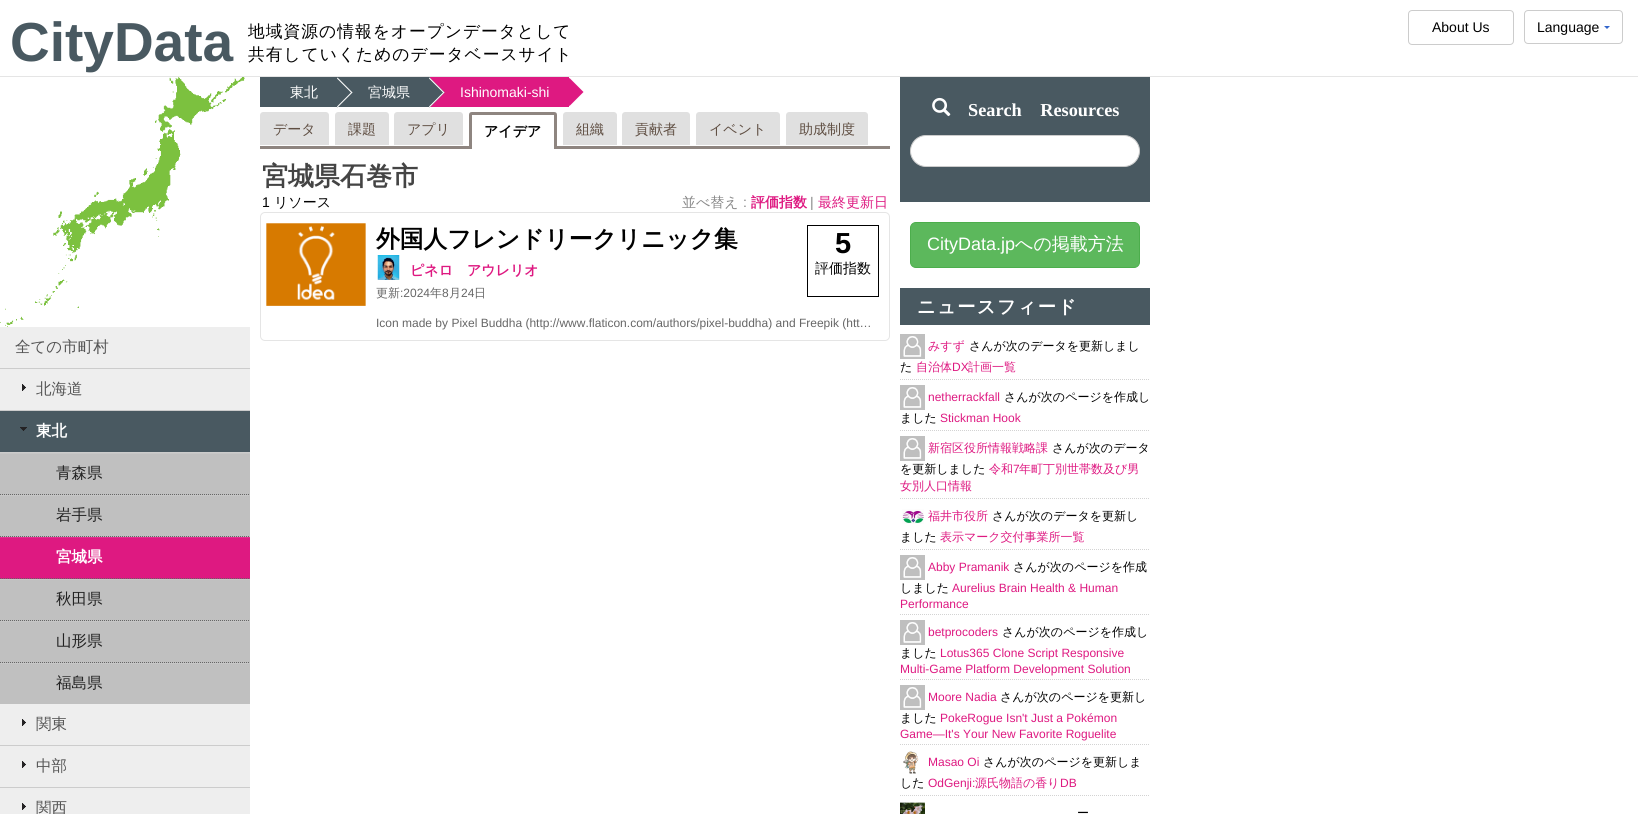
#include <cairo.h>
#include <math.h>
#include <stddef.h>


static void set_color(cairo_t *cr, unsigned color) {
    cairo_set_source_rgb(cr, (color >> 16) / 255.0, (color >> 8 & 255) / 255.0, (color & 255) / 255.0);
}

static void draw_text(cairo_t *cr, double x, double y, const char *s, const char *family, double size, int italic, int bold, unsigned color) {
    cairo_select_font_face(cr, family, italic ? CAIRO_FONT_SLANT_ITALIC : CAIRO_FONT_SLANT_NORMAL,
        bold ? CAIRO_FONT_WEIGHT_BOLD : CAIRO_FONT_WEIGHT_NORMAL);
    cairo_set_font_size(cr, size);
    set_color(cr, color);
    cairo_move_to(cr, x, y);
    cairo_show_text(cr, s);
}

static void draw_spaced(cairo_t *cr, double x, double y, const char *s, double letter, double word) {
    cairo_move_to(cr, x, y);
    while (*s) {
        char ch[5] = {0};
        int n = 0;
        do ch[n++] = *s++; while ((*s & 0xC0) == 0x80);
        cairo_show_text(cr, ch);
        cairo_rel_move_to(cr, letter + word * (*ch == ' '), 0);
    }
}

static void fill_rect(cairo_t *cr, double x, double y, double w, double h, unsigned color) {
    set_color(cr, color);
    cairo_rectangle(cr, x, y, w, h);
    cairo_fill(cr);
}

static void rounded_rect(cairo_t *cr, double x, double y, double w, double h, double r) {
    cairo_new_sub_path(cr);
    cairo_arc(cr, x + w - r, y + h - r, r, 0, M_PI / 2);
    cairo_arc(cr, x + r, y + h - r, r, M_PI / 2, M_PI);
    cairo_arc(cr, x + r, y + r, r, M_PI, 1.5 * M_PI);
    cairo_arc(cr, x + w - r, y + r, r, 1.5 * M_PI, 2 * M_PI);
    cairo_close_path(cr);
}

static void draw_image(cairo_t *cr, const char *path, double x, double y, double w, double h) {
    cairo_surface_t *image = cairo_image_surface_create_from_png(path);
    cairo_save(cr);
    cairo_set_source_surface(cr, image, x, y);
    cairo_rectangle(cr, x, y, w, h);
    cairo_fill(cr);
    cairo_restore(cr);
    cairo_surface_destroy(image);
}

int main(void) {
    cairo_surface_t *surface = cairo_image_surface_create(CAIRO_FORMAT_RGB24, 1638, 814);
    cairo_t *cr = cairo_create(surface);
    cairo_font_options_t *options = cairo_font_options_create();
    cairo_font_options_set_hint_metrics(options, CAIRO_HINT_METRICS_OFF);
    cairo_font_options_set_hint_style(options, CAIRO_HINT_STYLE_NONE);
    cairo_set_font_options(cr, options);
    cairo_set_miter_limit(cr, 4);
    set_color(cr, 0xFFFFFF);
    cairo_paint(cr);
    fill_rect(cr, 0, 76, 1638, 1, 0xE5E5E5);
    draw_text(cr, 10, 61, "CityData", "Liberation Sans", 55, 0, 1, 0x495961);
    cairo_select_font_face(cr, "WenQuanYi Zen Hei Medium", CAIRO_FONT_SLANT_NORMAL, CAIRO_FONT_WEIGHT_NORMAL);
    cairo_set_font_size(cr, 16.75);
    set_color(cr, 0x000000);
    draw_spaced(cr, 248, 37, "地域資源の情報をオープンデータとして", 1, 0);
    draw_spaced(cr, 248, 60, "共有していくためのデータベースサイト", 1, 0);
    rounded_rect(cr, 1408.5, 10.5, 105, 34, 3.5);
    set_color(cr, 0xCCCCCC);
    cairo_set_line_width(cr, 1);
    cairo_stroke(cr);
    draw_text(cr, 1432, 32, "About Us", "Liberation Sans", 14, 0, 0, 0x000000);
    rounded_rect(cr, 1524.5, 10.5, 98, 33, 3.5);
    set_color(cr, 0xCCCCCC);
    cairo_stroke(cr);
    draw_text(cr, 1537, 32, "Language", "Liberation Sans", 14, 0, 0, 0x000000);
    set_color(cr, 0x3366CC);
    cairo_new_path(cr);
    cairo_move_to(cr, 1604, 26);
    cairo_line_to(cr, 1610, 26);
    cairo_line_to(cr, 1607, 29);
    cairo_close_path(cr);
    cairo_fill(cr);
    draw_image(cr, "assets/img1.png", 0, 77, 245, 250);
    fill_rect(cr, 0, 327, 250, 487, 0xEEEEEE);
    fill_rect(cr, 0, 368, 250, 1, 0xCCCCCC);
    draw_text(cr, 15, 352, "全ての市町村", "WenQuanYi Zen Hei Medium", 15.5, 0, 0, 0x555555);
    fill_rect(cr, 0, 410, 250, 1, 0xCCCCCC);
    draw_image(cr, "assets/img2.png", 22, 384, 4, 7);
    draw_text(cr, 36, 394, "北海道", "WenQuanYi Zen Hei Medium", 15.5, 0, 0, 0x555555);
    fill_rect(cr, 0, 411, 250, 41, 0x495961);
    fill_rect(cr, 0, 452, 250, 1, 0xCCCCCC);
    draw_image(cr, "assets/img3.png", 20, 427, 7, 4);
    draw_text(cr, 36, 436, "東北", "WenQuanYi Zen Hei", 15.5, 0, 1, 0xFFFFFF);
    fill_rect(cr, 0, 454, 250, 41, 0xC0C0C0);
    fill_rect(cr, 0, 453, 250, 1, 0xC6C6C6);
    cairo_new_path(cr);
    cairo_move_to(cr, 0, 494.5);
    cairo_line_to(cr, 250, 494.5);
    set_color(cr, 0x666666);
    cairo_set_dash(cr, (double[]){1, 1}, 2, 0);
    cairo_stroke(cr);
    draw_text(cr, 56, 478, "青森県", "WenQuanYi Zen Hei Medium", 15.5, 0, 0, 0x222222);
    fill_rect(cr, 0, 496, 250, 41, 0xC0C0C0);
    fill_rect(cr, 0, 495, 250, 1, 0xC6C6C6);
    cairo_new_path(cr);
    cairo_move_to(cr, 0, 536.5);
    cairo_line_to(cr, 250, 536.5);
    set_color(cr, 0x666666);
    cairo_stroke(cr);
    draw_text(cr, 56, 520, "岩手県", "WenQuanYi Zen Hei Medium", 15.5, 0, 0, 0x222222);
    fill_rect(cr, 0, 538, 250, 41, 0xDE1981);
    fill_rect(cr, 0, 537, 250, 1, 0xE1308E);
    cairo_new_path(cr);
    cairo_move_to(cr, 0, 578.5);
    cairo_line_to(cr, 250, 578.5);
    set_color(cr, 0x666666);
    cairo_stroke(cr);
    draw_text(cr, 56, 562, "宮城県", "WenQuanYi Zen Hei", 15.5, 0, 1, 0xFFFFFF);
    fill_rect(cr, 0, 580, 250, 41, 0xC0C0C0);
    fill_rect(cr, 0, 579, 250, 1, 0xC6C6C6);
    cairo_new_path(cr);
    cairo_move_to(cr, 0, 620.5);
    cairo_line_to(cr, 250, 620.5);
    set_color(cr, 0x666666);
    cairo_stroke(cr);
    draw_text(cr, 56, 604, "秋田県", "WenQuanYi Zen Hei Medium", 15.5, 0, 0, 0x222222);
    fill_rect(cr, 0, 622, 250, 41, 0xC0C0C0);
    fill_rect(cr, 0, 621, 250, 1, 0xC6C6C6);
    cairo_new_path(cr);
    cairo_move_to(cr, 0, 662.5);
    cairo_line_to(cr, 250, 662.5);
    set_color(cr, 0x666666);
    cairo_stroke(cr);
    draw_text(cr, 56, 646, "山形県", "WenQuanYi Zen Hei Medium", 15.5, 0, 0, 0x222222);
    fill_rect(cr, 0, 664, 250, 40, 0xC0C0C0);
    fill_rect(cr, 0, 663, 250, 1, 0xC6C6C6);
    draw_text(cr, 56, 688, "福島県", "WenQuanYi Zen Hei Medium", 15.5, 0, 0, 0x222222);
    fill_rect(cr, 0, 745, 250, 1, 0xCCCCCC);
    draw_image(cr, "assets/img2.png", 22, 719, 4, 7);
    draw_text(cr, 36, 729, "関東", "WenQuanYi Zen Hei Medium", 15.5, 0, 0, 0x555555);
    fill_rect(cr, 0, 787, 250, 1, 0xCCCCCC);
    draw_image(cr, "assets/img2.png", 22, 761, 4, 7);
    draw_text(cr, 36, 771, "中部", "WenQuanYi Zen Hei Medium", 15.5, 0, 0, 0x555555);
    draw_image(cr, "assets/img2.png", 22, 803, 4, 7);
    draw_text(cr, 36, 813, "関西", "WenQuanYi Zen Hei Medium", 15.5, 0, 0, 0x555555);
    fill_rect(cr, 260, 77, 170, 30, 0x495961);
    draw_text(cr, 290, 97, "東北", "WenQuanYi Zen Hei Medium", 14, 0, 0, 0xFFFFFF);
    set_color(cr, 0x495961);
    cairo_new_path(cr);
    cairo_move_to(cr, 322.5, 92.5);
    cairo_line_to(cr, 337.5, 77.5);
    cairo_line_to(cr, 352.5, 92.5);
    cairo_line_to(cr, 337.5, 107.5);
    cairo_close_path(cr);
    cairo_fill(cr);
    set_color(cr, 0xFFFFFF);
    cairo_new_path(cr);
    cairo_move_to(cr, 337, 78.5);
    cairo_line_to(cr, 337.5, 77.5);
    cairo_line_to(cr, 352.5, 92.5);
    cairo_line_to(cr, 351.5, 93);
    cairo_close_path(cr);
    cairo_fill(cr);
    cairo_new_path(cr);
    cairo_move_to(cr, 337, 106.5);
    cairo_line_to(cr, 351.5, 92);
    cairo_line_to(cr, 352.5, 92.5);
    cairo_line_to(cr, 337.5, 107.5);
    cairo_close_path(cr);
    cairo_fill(cr);
    draw_text(cr, 368, 97, "宮城県", "WenQuanYi Zen Hei Medium", 14, 0, 0, 0xFFFFFF);
    fill_rect(cr, 430, 77, 139, 30, 0xDE1981);
    set_color(cr, 0x495961);
    cairo_new_path(cr);
    cairo_move_to(cr, 414.5, 92.5);
    cairo_line_to(cr, 429.5, 77.5);
    cairo_line_to(cr, 444.5, 92.5);
    cairo_line_to(cr, 429.5, 107.5);
    cairo_close_path(cr);
    cairo_fill(cr);
    set_color(cr, 0xFFFFFF);
    cairo_new_path(cr);
    cairo_move_to(cr, 429, 78.5);
    cairo_line_to(cr, 429.5, 77.5);
    cairo_line_to(cr, 444.5, 92.5);
    cairo_line_to(cr, 443.5, 93);
    cairo_close_path(cr);
    cairo_fill(cr);
    cairo_new_path(cr);
    cairo_move_to(cr, 429, 106.5);
    cairo_line_to(cr, 443.5, 92);
    cairo_line_to(cr, 444.5, 92.5);
    cairo_line_to(cr, 429.5, 107.5);
    cairo_close_path(cr);
    cairo_fill(cr);
    draw_text(cr, 460, 97, "Ishinomaki-shi", "Liberation Sans", 14, 0, 0, 0xFFFFFF);
    set_color(cr, 0xDE1981);
    cairo_new_path(cr);
    cairo_move_to(cr, 555.5, 92);
    cairo_line_to(cr, 569.5, 78);
    cairo_line_to(cr, 583.5, 92);
    cairo_line_to(cr, 569.5, 106);
    cairo_close_path(cr);
    cairo_fill(cr);
    fill_rect(cr, 260, 146, 630, 3, 0x8E8580);
    set_color(cr, 0xE0E0E0);
    cairo_new_path(cr);
    cairo_move_to(cr, 263, 112);
    cairo_line_to(cr, 326, 112);
    cairo_curve_to(cr, 327.5, 112, 329, 113.5, 329, 115);
    cairo_line_to(cr, 329, 145);
    cairo_line_to(cr, 260, 145);
    cairo_line_to(cr, 260, 115);
    cairo_curve_to(cr, 260, 113.5, 261.5, 112, 263, 112);
    cairo_close_path(cr);
    cairo_fill(cr);
    draw_text(cr, 273, 134, "データ", "WenQuanYi Zen Hei Medium", 14, 0, 0, 0x5F4E42);
    set_color(cr, 0xE0E0E0);
    cairo_new_path(cr);
    cairo_move_to(cr, 338, 112);
    cairo_line_to(cr, 386, 112);
    cairo_curve_to(cr, 387.5, 112, 389, 113.5, 389, 115);
    cairo_line_to(cr, 389, 145);
    cairo_line_to(cr, 335, 145);
    cairo_line_to(cr, 335, 115);
    cairo_curve_to(cr, 335, 113.5, 336.5, 112, 338, 112);
    cairo_close_path(cr);
    cairo_fill(cr);
    draw_text(cr, 348, 134, "課題", "WenQuanYi Zen Hei Medium", 14, 0, 0, 0x5F4E42);
    set_color(cr, 0xE0E0E0);
    cairo_new_path(cr);
    cairo_move_to(cr, 397, 112);
    cairo_line_to(cr, 460, 112);
    cairo_curve_to(cr, 461.5, 112, 463, 113.5, 463, 115);
    cairo_line_to(cr, 463, 145);
    cairo_line_to(cr, 394, 145);
    cairo_line_to(cr, 394, 115);
    cairo_curve_to(cr, 394, 113.5, 395.5, 112, 397, 112);
    cairo_close_path(cr);
    cairo_fill(cr);
    draw_text(cr, 407, 134, "アプリ", "WenQuanYi Zen Hei Medium", 14, 0, 0, 0x5F4E42);
    set_color(cr, 0xFFFFFF);
    cairo_new_path(cr);
    cairo_move_to(cr, 472, 112);
    cairo_line_to(cr, 554, 112);
    cairo_curve_to(cr, 555.5, 112, 557, 113.5, 557, 115);
    cairo_line_to(cr, 557, 149);
    cairo_line_to(cr, 469, 149);
    cairo_line_to(cr, 469, 115);
    cairo_curve_to(cr, 469, 113.5, 470.5, 112, 472, 112);
    cairo_close_path(cr);
    cairo_fill(cr);
    set_color(cr, 0x8E8580);
    cairo_set_fill_rule(cr, CAIRO_FILL_RULE_EVEN_ODD);
    cairo_new_path(cr);
    cairo_move_to(cr, 472, 112);
    cairo_line_to(cr, 554, 112);
    cairo_curve_to(cr, 556, 112, 557, 113, 557, 115);
    cairo_line_to(cr, 557, 149);
    cairo_line_to(cr, 469, 149);
    cairo_line_to(cr, 469, 115);
    cairo_curve_to(cr, 469, 113, 470, 112, 472, 112);
    cairo_close_path(cr);
    cairo_move_to(cr, 472, 115);
    cairo_line_to(cr, 554, 115);
    cairo_line_to(cr, 554, 149);
    cairo_line_to(cr, 472, 149);
    cairo_close_path(cr);
    cairo_fill(cr);
    draw_text(cr, 484, 136, "アイデア", "WenQuanYi Zen Hei", 14, 0, 1, 0x000000);
    set_color(cr, 0xE0E0E0);
    cairo_new_path(cr);
    cairo_move_to(cr, 566, 112);
    cairo_line_to(cr, 614, 112);
    cairo_curve_to(cr, 615.5, 112, 617, 113.5, 617, 115);
    cairo_line_to(cr, 617, 145);
    cairo_line_to(cr, 563, 145);
    cairo_line_to(cr, 563, 115);
    cairo_curve_to(cr, 563, 113.5, 564.5, 112, 566, 112);
    cairo_close_path(cr);
    cairo_fill(cr);
    draw_text(cr, 576, 134, "組織", "WenQuanYi Zen Hei Medium", 14, 0, 0, 0x5F4E42);
    set_color(cr, 0xE0E0E0);
    cairo_new_path(cr);
    cairo_move_to(cr, 625, 112);
    cairo_line_to(cr, 687, 112);
    cairo_curve_to(cr, 688.5, 112, 690, 113.5, 690, 115);
    cairo_line_to(cr, 690, 145);
    cairo_line_to(cr, 622, 145);
    cairo_line_to(cr, 622, 115);
    cairo_curve_to(cr, 622, 113.5, 623.5, 112, 625, 112);
    cairo_close_path(cr);
    cairo_fill(cr);
    draw_text(cr, 635, 134, "貢献者", "WenQuanYi Zen Hei Medium", 14, 0, 0, 0x5F4E42);
    set_color(cr, 0xE0E0E0);
    cairo_new_path(cr);
    cairo_move_to(cr, 699, 112);
    cairo_line_to(cr, 777, 112);
    cairo_curve_to(cr, 778.5, 112, 780, 113.5, 780, 115);
    cairo_line_to(cr, 780, 145);
    cairo_line_to(cr, 696, 145);
    cairo_line_to(cr, 696, 115);
    cairo_curve_to(cr, 696, 113.5, 697.5, 112, 699, 112);
    cairo_close_path(cr);
    cairo_fill(cr);
    draw_text(cr, 709, 134, "イベント", "WenQuanYi Zen Hei Medium", 14, 0, 0, 0x5F4E42);
    set_color(cr, 0xE0E0E0);
    cairo_new_path(cr);
    cairo_move_to(cr, 789, 112);
    cairo_line_to(cr, 865, 112);
    cairo_curve_to(cr, 866.5, 112, 868, 113.5, 868, 115);
    cairo_line_to(cr, 868, 145);
    cairo_line_to(cr, 786, 145);
    cairo_line_to(cr, 786, 115);
    cairo_curve_to(cr, 786, 113.5, 787.5, 112, 789, 112);
    cairo_close_path(cr);
    cairo_fill(cr);
    draw_text(cr, 799, 134, "助成制度", "WenQuanYi Zen Hei Medium", 14, 0, 0, 0x5F4E42);
    draw_text(cr, 262, 185, "宮城県石巻市", "WenQuanYi Zen Hei", 26, 0, 1, 0x444444);
    draw_text(cr, 262, 207, "1", "Liberation Sans", 14, 0, 0, 0x000000);
    draw_text(cr, 274, 207, "リソース", "WenQuanYi Zen Hei Medium", 14, 0, 0, 0x000000);
    draw_text(cr, 682, 207, "並べ替え", "WenQuanYi Zen Hei Medium", 14, 0, 0, 0x888888);
    draw_text(cr, 743, 207, ":", "Liberation Sans", 14, 0, 0, 0x888888);
    draw_text(cr, 751, 207, "評価指数", "WenQuanYi Zen Hei", 14, 0, 1, 0xDE1981);
    draw_text(cr, 810, 207, "|", "Liberation Sans", 14, 0, 0, 0x888888);
    draw_text(cr, 818, 207, "最終更新日", "WenQuanYi Zen Hei Medium", 14, 0, 0, 0xDE1981);
    rounded_rect(cr, 260.5, 212.5, 629, 128, 4.5);
    set_color(cr, 0xE5E5E5);
    cairo_set_dash(cr, NULL, 0, 0);
    cairo_stroke(cr);
    draw_image(cr, "assets/img4.png", 266, 223, 100, 83);
    draw_text(cr, 376, 247, "外国人フレンドリークリニック集", "WenQuanYi Zen Hei", 23.75, 0, 1, 0x000000);
    draw_image(cr, "assets/img5.png", 377, 255, 23, 25);
    draw_text(cr, 410, 275, "ピネロ　アウレリオ", "WenQuanYi Zen Hei", 14, 0, 1, 0xDE1981);
    draw_text(cr, 376, 297, "更新", "WenQuanYi Zen Hei Medium", 12, 0, 0, 0x666666);
    draw_text(cr, 400, 297, ":2024", "Liberation Sans", 12, 0, 0, 0x666666);
    draw_text(cr, 430, 297, "年", "WenQuanYi Zen Hei Medium", 12, 0, 0, 0x666666);
    draw_text(cr, 442, 297, "8", "Liberation Sans", 12, 0, 0, 0x666666);
    draw_text(cr, 449, 297, "月", "WenQuanYi Zen Hei Medium", 12, 0, 0, 0x666666);
    draw_text(cr, 461, 297, "24", "Liberation Sans", 12, 0, 0, 0x666666);
    draw_text(cr, 474, 297, "日", "WenQuanYi Zen Hei Medium", 12, 0, 0, 0x666666);
    cairo_rectangle(cr, 807.5, 225.5, 71, 71);
    set_color(cr, 0x000000);
    cairo_stroke(cr);
    draw_text(cr, 835, 253, "5", "Liberation Sans", 29, 0, 1, 0x000000);
    draw_text(cr, 815, 273, "評価指数", "WenQuanYi Zen Hei Medium", 14, 0, 0, 0x000000);
    draw_text(cr, 376, 327, "Icon made by Pixel Buddha (http://www.flaticon.com/authors/pixel-buddha) and Freepik (htt…", "Liberation Sans", 12, 0, 0, 0x666666);
    fill_rect(cr, 900, 77, 250, 125, 0x495961);
    draw_image(cr, "assets/img6.png", 932, 97, 19, 20);
    cairo_select_font_face(cr, "Liberation Serif", CAIRO_FONT_SLANT_NORMAL, CAIRO_FONT_WEIGHT_BOLD);
    cairo_set_font_size(cr, 18.25);
    set_color(cr, 0xFFFFFF);
    draw_spaced(cr, 968, 116, "Search Resources", 0, 14);
    rounded_rect(cr, 910.5, 135.5, 229, 31, 15.5);
    cairo_fill_preserve(cr);
    set_color(cr, 0xCCCCCC);
    cairo_stroke(cr);
    set_color(cr, 0x5CB85C);
    rounded_rect(cr, 910.5, 222.5, 229, 45, 5.5);
    cairo_fill_preserve(cr);
    set_color(cr, 0x4CAE4C);
    cairo_stroke(cr);
    draw_text(cr, 927, 250, "CityData.jp", "Liberation Sans", 18, 0, 0, 0xFFFFFF);
    draw_text(cr, 1015, 250, "への掲載方法", "WenQuanYi Zen Hei Medium", 18, 0, 0, 0xFFFFFF);
    fill_rect(cr, 900, 288, 250, 37, 0x495961);
    cairo_select_font_face(cr, "WenQuanYi Zen Hei", CAIRO_FONT_SLANT_NORMAL, CAIRO_FONT_WEIGHT_BOLD);
    cairo_set_font_size(cr, 18.25);
    set_color(cr, 0xFFFFFF);
    draw_spaced(cr, 917, 313, "ニュースフィード", 1.5, 0);
    cairo_new_path(cr);
    cairo_move_to(cr, 900, 379.5);
    cairo_line_to(cr, 1150, 379.5);
    set_color(cr, 0xD3D3D3);
    cairo_set_dash(cr, (double[]){1, 1}, 2, 0);
    cairo_stroke(cr);
    draw_image(cr, "assets/img7.png", 900, 334, 25, 25);
    draw_text(cr, 928, 350, "みすず", "WenQuanYi Zen Hei Medium", 12, 0, 0, 0xDE1981);
    draw_text(cr, 969, 350, "さんが次のデータを更新しまし", "WenQuanYi Zen Hei Medium", 12, 0, 0, 0x000000);
    draw_text(cr, 900, 371, "た", "WenQuanYi Zen Hei Medium", 12, 0, 0, 0x000000);
    draw_text(cr, 916, 371, "自治体", "WenQuanYi Zen Hei Medium", 12, 0, 0, 0xDE1981);
    draw_text(cr, 952, 371, "DX", "Liberation Sans", 12, 0, 0, 0xDE1981);
    draw_text(cr, 968, 371, "計画一覧", "WenQuanYi Zen Hei Medium", 12, 0, 0, 0xDE1981);
    cairo_new_path(cr);
    cairo_move_to(cr, 900, 430.5);
    cairo_line_to(cr, 1150, 430.5);
    set_color(cr, 0xD3D3D3);
    cairo_stroke(cr);
    draw_image(cr, "assets/img7.png", 900, 385, 25, 25);
    draw_text(cr, 928, 401, "netherrackfall", "Liberation Sans", 12, 0, 0, 0xDE1981);
    draw_text(cr, 1004, 401, "さんが次のページを作成し", "WenQuanYi Zen Hei Medium", 12, 0, 0, 0x000000);
    draw_text(cr, 900, 422, "ました", "WenQuanYi Zen Hei Medium", 12, 0, 0, 0x000000);
    draw_text(cr, 940, 422, "Stickman Hook", "Liberation Sans", 12, 0, 0, 0xDE1981);
    cairo_new_path(cr);
    cairo_move_to(cr, 900, 498.5);
    cairo_line_to(cr, 1150, 498.5);
    set_color(cr, 0xD3D3D3);
    cairo_stroke(cr);
    draw_image(cr, "assets/img7.png", 900, 436, 25, 25);
    draw_text(cr, 928, 452, "新宿区役所情報戦略課", "WenQuanYi Zen Hei Medium", 12, 0, 0, 0xDE1981);
    draw_text(cr, 1052, 452, "さんが次のデータ", "WenQuanYi Zen Hei Medium", 12, 0, 0, 0x000000);
    draw_text(cr, 900, 473, "を更新しました", "WenQuanYi Zen Hei Medium", 12, 0, 0, 0x000000);
    draw_text(cr, 989, 473, "令和", "WenQuanYi Zen Hei Medium", 12, 0, 0, 0xDE1981);
    draw_text(cr, 1013, 473, "7", "Liberation Sans", 12, 0, 0, 0xDE1981);
    draw_text(cr, 1019, 473, "年町丁別世帯数及び男", "WenQuanYi Zen Hei Medium", 12, 0, 0, 0xDE1981);
    draw_text(cr, 900, 490, "女別人口情報", "WenQuanYi Zen Hei Medium", 12, 0, 0, 0xDE1981);
    cairo_new_path(cr);
    cairo_move_to(cr, 900, 549.5);
    cairo_line_to(cr, 1150, 549.5);
    set_color(cr, 0xD3D3D3);
    cairo_stroke(cr);
    draw_image(cr, "assets/img8.png", 902, 509, 22, 15);
    draw_text(cr, 928, 520, "福井市役所", "WenQuanYi Zen Hei Medium", 12, 0, 0, 0xDE1981);
    draw_text(cr, 992, 520, "さんが次のデータを更新し", "WenQuanYi Zen Hei Medium", 12, 0, 0, 0x000000);
    draw_text(cr, 900, 541, "ました", "WenQuanYi Zen Hei Medium", 12, 0, 0, 0x000000);
    draw_text(cr, 940, 541, "表示マーク交付事業所一覧", "WenQuanYi Zen Hei Medium", 12, 0, 0, 0xDE1981);
    cairo_new_path(cr);
    cairo_move_to(cr, 900, 614.5);
    cairo_line_to(cr, 1150, 614.5);
    set_color(cr, 0xD3D3D3);
    cairo_stroke(cr);
    draw_image(cr, "assets/img7.png", 900, 555, 25, 25);
    draw_text(cr, 928, 571, "Abby Pramanik", "Liberation Sans", 12, 0, 0, 0xDE1981);
    draw_text(cr, 1013, 571, "さんが次のページを作成", "WenQuanYi Zen Hei Medium", 12, 0, 0, 0x000000);
    draw_text(cr, 900, 592, "しました", "WenQuanYi Zen Hei Medium", 12, 0, 0, 0x000000);
    draw_text(cr, 952, 592, "Aurelius Brain Health & Human", "Liberation Sans", 12, 0, 0, 0xDE1981);
    draw_text(cr, 900, 608, "Performance", "Liberation Sans", 12, 0, 0, 0xDE1981);
    cairo_new_path(cr);
    cairo_move_to(cr, 900, 679.5);
    cairo_line_to(cr, 1150, 679.5);
    set_color(cr, 0xD3D3D3);
    cairo_stroke(cr);
    draw_image(cr, "assets/img7.png", 900, 620, 25, 25);
    draw_text(cr, 928, 636, "betprocoders", "Liberation Sans", 12, 0, 0, 0xDE1981);
    draw_text(cr, 1002, 636, "さんが次のページを作成し", "WenQuanYi Zen Hei Medium", 12, 0, 0, 0x000000);
    draw_text(cr, 900, 657, "ました", "WenQuanYi Zen Hei Medium", 12, 0, 0, 0x000000);
    draw_text(cr, 940, 657, "Lotus365 Clone Script Responsive", "Liberation Sans", 12, 0, 0, 0xDE1981);
    draw_text(cr, 900, 673, "Multi-Game Platform Development Solution", "Liberation Sans", 12, 0, 0, 0xDE1981);
    cairo_new_path(cr);
    cairo_move_to(cr, 900, 744.5);
    cairo_line_to(cr, 1150, 744.5);
    set_color(cr, 0xD3D3D3);
    cairo_stroke(cr);
    draw_image(cr, "assets/img7.png", 900, 685, 25, 25);
    draw_text(cr, 928, 701, "Moore Nadia", "Liberation Sans", 12, 0, 0, 0xDE1981);
    draw_text(cr, 1000, 701, "さんが次のページを更新し", "WenQuanYi Zen Hei Medium", 12, 0, 0, 0x000000);
    draw_text(cr, 900, 722, "ました", "WenQuanYi Zen Hei Medium", 12, 0, 0, 0x000000);
    draw_text(cr, 940, 722, "PokeRogue Isn't Just a Pokémon", "Liberation Sans", 12, 0, 0, 0xDE1981);
    draw_text(cr, 900, 738, "Game—It's Your New Favorite Roguelite", "Liberation Sans", 12, 0, 0, 0xDE1981);
    cairo_new_path(cr);
    cairo_move_to(cr, 900, 795.5);
    cairo_line_to(cr, 1150, 795.5);
    set_color(cr, 0xD3D3D3);
    cairo_stroke(cr);
    draw_image(cr, "assets/img9.png", 903, 751, 16, 23);
    draw_text(cr, 928, 766, "Masao Oi", "Liberation Sans", 12, 0, 0, 0xDE1981);
    draw_text(cr, 983, 766, "さんが次のページを更新しま", "WenQuanYi Zen Hei Medium", 12, 0, 0, 0x000000);
    draw_text(cr, 900, 787, "した", "WenQuanYi Zen Hei Medium", 12, 0, 0, 0x000000);
    draw_text(cr, 928, 787, "OdGenji:", "Liberation Sans", 12, 0, 0, 0xDE1981);
    draw_text(cr, 975, 787, "源氏物語の香り", "WenQuanYi Zen Hei Medium", 12, 0, 0, 0xDE1981);
    draw_text(cr, 1060, 787, "DB", "Liberation Sans", 12, 0, 0, 0xDE1981);
    draw_image(cr, "assets/img10.png", 900, 802, 25, 12);
    draw_text(cr, 1077, 817, "ー", "WenQuanYi Zen Hei Medium", 12, 0, 0, 0x000000);
    cairo_surface_write_to_png(surface, "output.png");
    cairo_font_options_destroy(options);
    cairo_destroy(cr);
    cairo_surface_destroy(surface);
    return 0;
}
